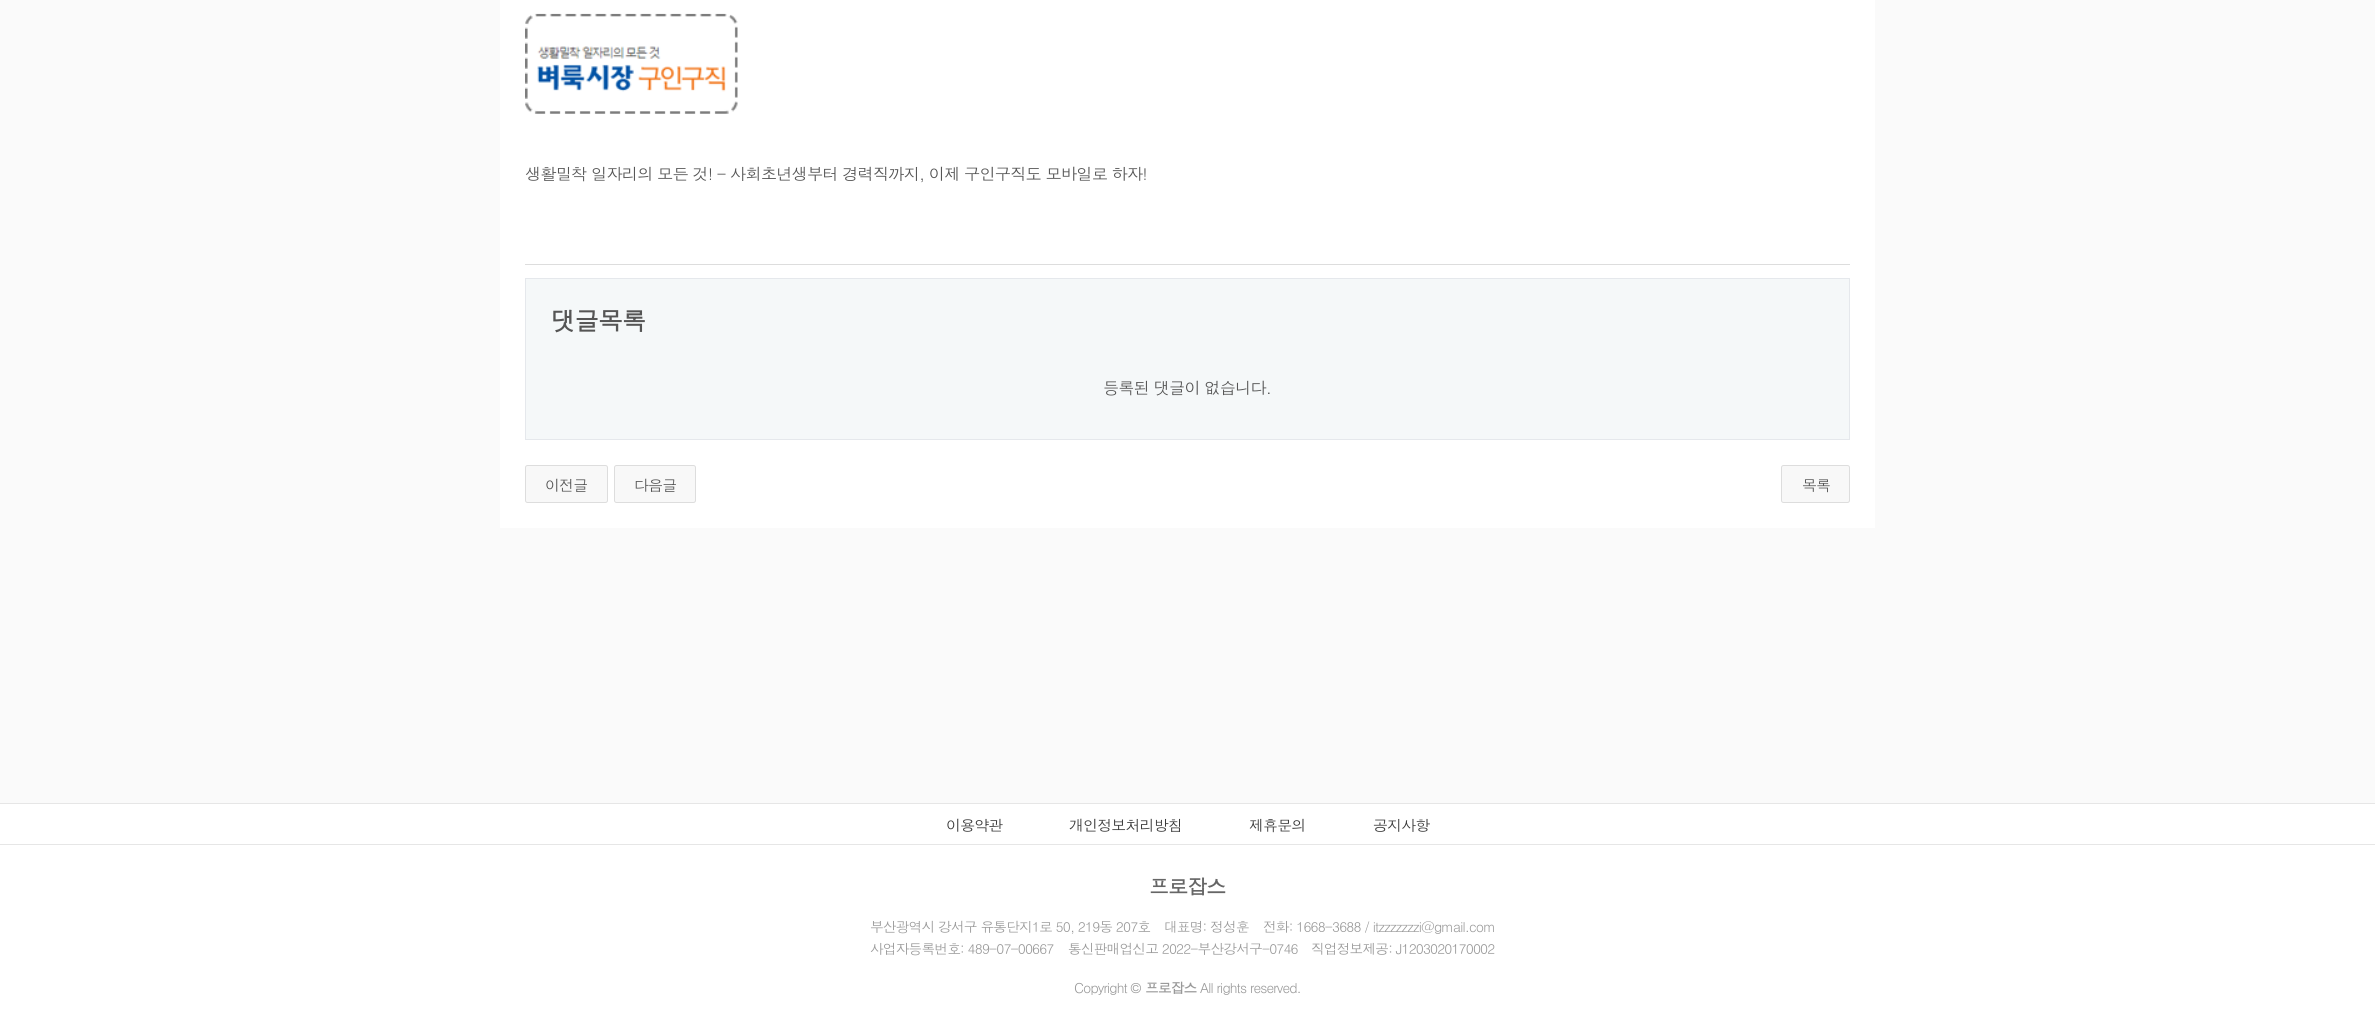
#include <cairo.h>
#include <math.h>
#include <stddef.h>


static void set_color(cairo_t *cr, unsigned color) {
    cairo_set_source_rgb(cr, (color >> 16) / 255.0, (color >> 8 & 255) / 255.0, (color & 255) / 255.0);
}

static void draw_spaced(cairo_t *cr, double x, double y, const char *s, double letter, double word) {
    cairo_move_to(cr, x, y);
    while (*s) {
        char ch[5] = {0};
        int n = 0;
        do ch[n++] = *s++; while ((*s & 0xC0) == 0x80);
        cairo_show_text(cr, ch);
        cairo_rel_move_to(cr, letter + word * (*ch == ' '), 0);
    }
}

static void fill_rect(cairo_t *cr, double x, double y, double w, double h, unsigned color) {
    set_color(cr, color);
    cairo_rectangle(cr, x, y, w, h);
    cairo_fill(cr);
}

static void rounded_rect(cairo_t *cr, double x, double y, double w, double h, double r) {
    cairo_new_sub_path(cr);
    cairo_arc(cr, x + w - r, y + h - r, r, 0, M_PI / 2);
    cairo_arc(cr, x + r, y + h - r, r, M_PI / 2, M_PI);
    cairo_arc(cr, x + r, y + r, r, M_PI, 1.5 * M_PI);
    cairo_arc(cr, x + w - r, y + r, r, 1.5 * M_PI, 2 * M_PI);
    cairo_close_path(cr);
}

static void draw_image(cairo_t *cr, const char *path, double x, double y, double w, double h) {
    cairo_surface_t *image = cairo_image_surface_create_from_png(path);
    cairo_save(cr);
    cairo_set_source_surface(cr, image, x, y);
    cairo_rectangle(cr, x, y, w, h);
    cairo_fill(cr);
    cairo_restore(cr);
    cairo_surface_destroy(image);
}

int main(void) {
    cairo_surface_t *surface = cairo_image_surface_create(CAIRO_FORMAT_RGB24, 2375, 1014);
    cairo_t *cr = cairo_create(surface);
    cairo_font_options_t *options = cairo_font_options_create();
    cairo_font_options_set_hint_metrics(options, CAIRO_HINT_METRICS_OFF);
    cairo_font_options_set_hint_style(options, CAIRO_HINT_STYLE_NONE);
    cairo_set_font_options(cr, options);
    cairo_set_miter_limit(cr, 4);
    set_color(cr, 0xFFFFFF);
    cairo_paint(cr);
    fill_rect(cr, 0, 0, 2375, 803, 0xFAFAFA);
    fill_rect(cr, 500, 0, 1375, 528, 0xFFFFFF);
    fill_rect(cr, 525, 264, 1325, 1, 0xDDDDDD);
    draw_image(cr, "assets/img1.png", 525, 13, 213, 101);
    cairo_select_font_face(cr, "Dotum", CAIRO_FONT_SLANT_NORMAL, CAIRO_FONT_WEIGHT_NORMAL);
    cairo_set_font_size(cr, 16.25);
    set_color(cr, 0x555555);
    draw_spaced(cr, 525, 180, "생활밀착 일자리의 모든 것! - 사회초년생부터 경력직까지, 이제 구인구직도 모바일로 하자!", -0.88, 0);
    set_color(cr, 0xF5F8F9);
    cairo_rectangle(cr, 525.5, 278.5, 1324, 161);
    cairo_fill_preserve(cr);
    set_color(cr, 0xE5E8EC);
    cairo_set_line_width(cr, 1);
    cairo_stroke(cr);
    cairo_select_font_face(cr, "Dotum", CAIRO_FONT_SLANT_NORMAL, CAIRO_FONT_WEIGHT_BOLD);
    cairo_set_font_size(cr, 24.5);
    set_color(cr, 0x555555);
    draw_spaced(cr, 551, 330, "댓글목록", -0.88, 0);
    cairo_select_font_face(cr, "Dotum", CAIRO_FONT_SLANT_NORMAL, CAIRO_FONT_WEIGHT_NORMAL);
    cairo_set_font_size(cr, 16.25);
    draw_spaced(cr, 1103, 394, "등록된 댓글이 없습니다.", -0.88, 0);
    set_color(cr, 0xF8F8F8);
    rounded_rect(cr, 525.5, 465.5, 82, 37, 2);
    cairo_fill_preserve(cr);
    set_color(cr, 0xDDDDDD);
    cairo_stroke(cr);
    cairo_set_font_size(cr, 15);
    set_color(cr, 0x555555);
    draw_spaced(cr, 545, 491, "이전글", -0.88, 0);
    set_color(cr, 0xF8F8F8);
    rounded_rect(cr, 614.5, 465.5, 81, 37, 2);
    cairo_fill_preserve(cr);
    set_color(cr, 0xDDDDDD);
    cairo_stroke(cr);
    set_color(cr, 0x555555);
    draw_spaced(cr, 634, 491, "다음글", -0.88, 0);
    set_color(cr, 0xF8F8F8);
    rounded_rect(cr, 1781.5, 465.5, 68, 37, 2);
    cairo_fill_preserve(cr);
    set_color(cr, 0xDDDDDD);
    cairo_stroke(cr);
    set_color(cr, 0x555555);
    draw_spaced(cr, 1802, 491, "목록", -0.88, 0);
    fill_rect(cr, 0, 803, 2375, 1, 0xE6E6E6);
    fill_rect(cr, 0, 844, 2375, 1, 0xE6E6E6);
    set_color(cr, 0x393939);
    draw_spaced(cr, 946, 831, "이용약관", -0.88, 0);
    draw_spaced(cr, 1069, 831, "개인정보처리방침", -0.88, 0);
    draw_spaced(cr, 1249, 831, "제휴문의", -0.88, 0);
    draw_spaced(cr, 1373, 831, "공지사항", -0.88, 0);
    cairo_select_font_face(cr, "Dotum", CAIRO_FONT_SLANT_NORMAL, CAIRO_FONT_WEIGHT_BOLD);
    cairo_set_font_size(cr, 20);
    set_color(cr, 0x666666);
    draw_spaced(cr, 1149, 894, "프로잡스", -0.88, 0);
    cairo_select_font_face(cr, "Dotum", CAIRO_FONT_SLANT_NORMAL, CAIRO_FONT_WEIGHT_NORMAL);
    cairo_set_font_size(cr, 13.75);
    set_color(cr, 0x999999);
    draw_spaced(cr, 870, 932, "부산광역시 강서구 유통단지1로 50, 219동 207호", -0.88, 0);
    draw_spaced(cr, 1164, 932, "대표명: 정성훈", -0.88, 0);
    draw_spaced(cr, 1263, 932, "전화: 1668-3688 / itzzzzzzzi@gmail.com", -0.88, 0);
    draw_spaced(cr, 870, 954, "사업자등록번호: 489-07-00667", -0.88, 0);
    draw_spaced(cr, 1068, 954, "통신판매업신고 2022-부산강서구-0746", -0.88, 0);
    draw_spaced(cr, 1311, 954, "직업정보제공: J1203020170002", -0.88, 0);
    draw_spaced(cr, 1074, 993, "Copyright ©", -0.88, 0);
    cairo_select_font_face(cr, "Dotum", CAIRO_FONT_SLANT_NORMAL, CAIRO_FONT_WEIGHT_BOLD);
    draw_spaced(cr, 1145, 993, "프로잡스", -0.88, 0);
    cairo_select_font_face(cr, "Dotum", CAIRO_FONT_SLANT_NORMAL, CAIRO_FONT_WEIGHT_NORMAL);
    draw_spaced(cr, 1200, 993, "All rights reserved.", -0.88, 0);
    cairo_surface_write_to_png(surface, "output.png");
    cairo_font_options_destroy(options);
    cairo_destroy(cr);
    cairo_surface_destroy(surface);
    return 0;
}
